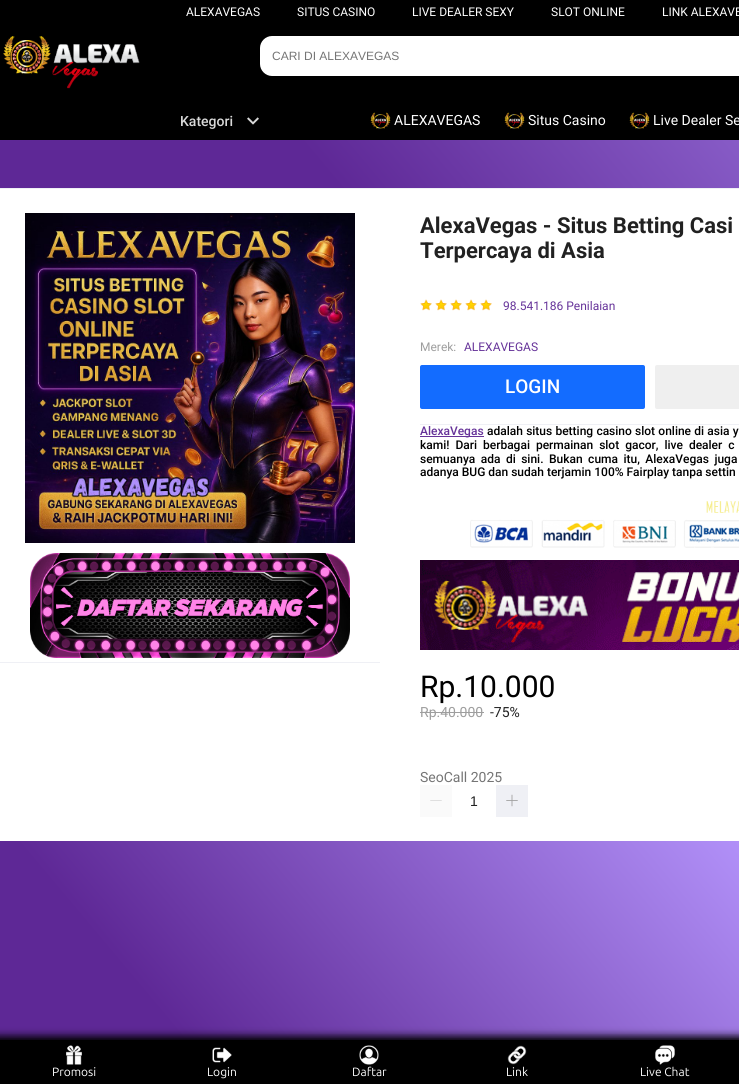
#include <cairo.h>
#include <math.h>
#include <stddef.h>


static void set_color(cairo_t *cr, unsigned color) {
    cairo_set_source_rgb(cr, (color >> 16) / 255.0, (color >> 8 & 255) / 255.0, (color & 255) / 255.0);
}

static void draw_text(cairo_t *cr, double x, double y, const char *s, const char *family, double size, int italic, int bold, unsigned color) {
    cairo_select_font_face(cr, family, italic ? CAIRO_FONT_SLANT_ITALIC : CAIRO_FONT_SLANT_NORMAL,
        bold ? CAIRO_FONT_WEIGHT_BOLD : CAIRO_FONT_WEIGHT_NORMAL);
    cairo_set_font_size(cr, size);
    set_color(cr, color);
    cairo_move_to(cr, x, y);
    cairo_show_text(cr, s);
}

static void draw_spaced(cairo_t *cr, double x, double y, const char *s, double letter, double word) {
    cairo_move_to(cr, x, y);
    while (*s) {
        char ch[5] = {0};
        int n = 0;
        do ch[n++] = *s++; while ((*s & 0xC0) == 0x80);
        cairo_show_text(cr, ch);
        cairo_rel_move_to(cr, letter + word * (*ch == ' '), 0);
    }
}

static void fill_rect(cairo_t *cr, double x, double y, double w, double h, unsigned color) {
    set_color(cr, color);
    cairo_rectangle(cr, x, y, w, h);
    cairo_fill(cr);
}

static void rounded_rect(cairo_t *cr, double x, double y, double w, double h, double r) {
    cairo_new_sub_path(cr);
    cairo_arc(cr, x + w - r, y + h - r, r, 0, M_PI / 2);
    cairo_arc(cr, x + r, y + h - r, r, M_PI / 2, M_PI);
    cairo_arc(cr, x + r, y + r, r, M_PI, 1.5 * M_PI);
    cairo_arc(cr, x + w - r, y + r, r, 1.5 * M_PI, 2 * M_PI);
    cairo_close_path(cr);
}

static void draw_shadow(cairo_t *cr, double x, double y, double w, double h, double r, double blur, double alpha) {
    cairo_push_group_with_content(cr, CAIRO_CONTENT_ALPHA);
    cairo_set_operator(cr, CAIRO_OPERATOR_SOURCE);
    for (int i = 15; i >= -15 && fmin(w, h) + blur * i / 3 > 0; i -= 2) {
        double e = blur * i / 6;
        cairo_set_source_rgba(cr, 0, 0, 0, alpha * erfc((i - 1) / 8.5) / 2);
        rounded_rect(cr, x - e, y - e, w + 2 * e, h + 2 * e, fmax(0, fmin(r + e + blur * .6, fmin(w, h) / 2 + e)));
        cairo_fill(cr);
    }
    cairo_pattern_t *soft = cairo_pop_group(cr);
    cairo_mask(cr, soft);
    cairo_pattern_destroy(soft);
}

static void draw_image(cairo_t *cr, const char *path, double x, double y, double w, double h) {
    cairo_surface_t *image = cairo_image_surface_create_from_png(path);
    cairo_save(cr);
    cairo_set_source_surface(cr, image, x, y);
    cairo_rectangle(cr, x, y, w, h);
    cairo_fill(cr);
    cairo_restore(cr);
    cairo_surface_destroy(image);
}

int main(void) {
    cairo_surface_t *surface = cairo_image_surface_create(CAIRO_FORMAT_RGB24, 739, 1084);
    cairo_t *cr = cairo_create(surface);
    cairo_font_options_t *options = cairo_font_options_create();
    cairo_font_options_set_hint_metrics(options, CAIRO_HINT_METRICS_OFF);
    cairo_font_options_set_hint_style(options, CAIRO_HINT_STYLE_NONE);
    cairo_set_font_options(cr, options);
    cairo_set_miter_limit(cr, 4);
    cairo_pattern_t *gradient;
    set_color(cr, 0xFFFFFF);
    cairo_paint(cr);
    gradient = cairo_pattern_create_linear(-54, 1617, 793, 906);
    cairo_pattern_add_color_stop_rgba(gradient, 0.5, 0.369, 0.157, 0.588, 1);
    cairo_pattern_add_color_stop_rgba(gradient, 1, 0.694, 0.565, 0.973, 1);
    cairo_set_source(cr, gradient);
    cairo_pattern_destroy(gradient);
    cairo_rectangle(cr, 0, 841, 739, 199);
    cairo_fill(cr);
    fill_rect(cr, 0, 0, 739, 140, 0x000000);
    draw_text(cr, 186, 16, "ALEXAVEGAS", "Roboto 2", 12, 0, 0, 0xFFFFFF);
    draw_text(cr, 297, 16, "SITUS CASINO", "Roboto 2", 12, 0, 0, 0xFFFFFF);
    draw_text(cr, 412, 16, "LIVE DEALER SEXY", "Roboto 2", 12, 0, 0, 0xFFFFFF);
    draw_text(cr, 551, 16, "SLOT ONLINE", "Roboto 2", 12, 0, 0, 0xFFFFFF);
    draw_text(cr, 662, 16, "LINK ALEXAVE", "Roboto 2", 12, 0, 0, 0xFFFFFF);
    draw_image(cr, "assets/img1.png", 3, 36, 137, 53);
    cairo_new_path(cr);
    cairo_move_to(cr, 272, 36);
    cairo_line_to(cr, 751, 36);
    cairo_line_to(cr, 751, 76);
    cairo_line_to(cr, 272, 76);
    cairo_curve_to(cr, 265.5, 76, 260, 70.5, 260, 64);
    cairo_line_to(cr, 260, 48);
    cairo_curve_to(cr, 260, 41.5, 265.5, 36, 272, 36);
    cairo_close_path(cr);
    cairo_fill(cr);
    draw_text(cr, 272, 60, "CARI DI ALEXAVEGAS", "Liberation Sans", 12, 0, 0, 0x757575);
    draw_text(cr, 180, 126, "Kategori", "Roboto 2 Medium", 14, 0, 0, 0xD9D9D9);
    draw_image(cr, "assets/img2.png", 247, 117, 12, 8);
    draw_image(cr, "assets/img3.png", 370, 112, 21, 17);
    draw_text(cr, 394, 125, "ALEXAVEGAS", "Roboto 2", 14, 0, 0, 0xFFFFFF);
    draw_image(cr, "assets/img4.png", 504, 112, 21, 17);
    draw_text(cr, 528, 125, "Situs Casino", "Roboto 2", 14, 0, 0, 0xFFFFFF);
    draw_image(cr, "assets/img4.png", 629, 112, 21, 17);
    draw_text(cr, 653, 125, "Live Dealer Se", "Roboto 2", 14, 0, 0, 0xFFFFFF);
    gradient = cairo_pattern_create_linear(73, 928, 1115, 53);
    cairo_pattern_add_color_stop_rgba(gradient, 0.5, 0.369, 0.157, 0.588, 1);
    cairo_pattern_add_color_stop_rgba(gradient, 1, 0.694, 0.565, 0.973, 1);
    cairo_set_source(cr, gradient);
    cairo_pattern_destroy(gradient);
    cairo_rectangle(cr, 0, 140, 739, 48);
    cairo_fill(cr);
    fill_rect(cr, 0, 188, 739, 1, 0xEFF0F5);
    fill_rect(cr, 0, 662, 380, 1, 0xEFF0F5);
    draw_image(cr, "assets/img5.png", 25, 213, 330, 330);
    draw_image(cr, "assets/img6.png", 30, 553, 320, 105);
    draw_text(cr, 420, 233, "AlexaVegas - Situs Betting Casi", "Roboto", 22, 0, 1, 0x212121);
    draw_text(cr, 420, 258, "Terpercaya di Asia", "Roboto", 22, 0, 1, 0x212121);
    draw_image(cr, "assets/img7.png", 420, 299, 12, 12);
    draw_image(cr, "assets/img7.png", 435, 299, 12, 12);
    draw_image(cr, "assets/img7.png", 450, 299, 12, 12);
    draw_image(cr, "assets/img7.png", 465, 299, 12, 12);
    draw_image(cr, "assets/img7.png", 480, 299, 12, 12);
    draw_text(cr, 503, 310, "98.541.186 Penilaian", "Roboto", 12, 0, 0, 0x663399);
    fill_rect(cr, 420, 424, 319, 1, 0xEFF0F5);
    draw_text(cr, 420, 351, "Merek:", "Roboto", 12, 0, 0, 0x9E9E9E);
    draw_text(cr, 464, 351, "ALEXAVEGAS", "Roboto", 12, 0, 0, 0x663399);
    set_color(cr, 0x136CFF);
    rounded_rect(cr, 420, 365, 225, 44, 2);
    cairo_fill(cr);
    draw_text(cr, 505, 393, "LOGIN", "Roboto Medium", 19, 0, 0, 0xFFFFFF);
    set_color(cr, 0xEFEFEF);
    rounded_rect(cr, 655, 365, 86, 44, 2);
    cairo_fill(cr);
    fill_rect(cr, 420, 436, 64, 1, 0x663399);
    draw_text(cr, 420, 435, "AlexaVegas", "Roboto Medium", 12, 0, 0, 0x663399);
    set_color(cr, 0x000000);
    draw_spaced(cr, 487, 435, "adalah situs betting casino slot online di asia y", 0, 0.25);
    draw_spaced(cr, 420, 449, "kami! Dari berbagai permainan slot gacor, live dealer c", 0, 3);
    draw_spaced(cr, 420, 463, "semuanya ada di sini. Bukan cuma itu, AlexaVegas juga", 0, 2.5);
    draw_text(cr, 420, 476, "adanya BUG dan sudah terjamin 100% Fairplay tanpa settin", "Roboto Medium", 12, 0, 0, 0x000000);
    draw_image(cr, "assets/img8.png", 470, 501, 269, 47);
    draw_image(cr, "assets/img9.png", 420, 560, 319, 90);
    draw_text(cr, 420, 697, "Rp.10.000", "Roboto", 30, 0, 0, 0x000000);
    draw_text(cr, 420, 717, "Rp.40.000", "Roboto", 14, 0, 0, 0x9E9E9E);
    fill_rect(cr, 420, 712, 64, 1, 0x9E9E9E);
    draw_text(cr, 490, 717, "-75%", "Roboto", 14, 0, 0, 0x212121);
    draw_text(cr, 420, 782, "SeoCall 2025", "Roboto", 14, 0, 0, 0x757575);
    fill_rect(cr, 420, 785, 32, 32, 0xFAFAFA);
    draw_image(cr, "assets/img10.png", 430, 800, 12, 1);
    fill_rect(cr, 496, 785, 32, 32, 0xEFF0F5);
    draw_image(cr, "assets/img11.png", 506, 794, 12, 13);
    draw_text(cr, 470, 806, "1", "Liberation Sans", 14, 0, 0, 0x212121);
    set_color(cr, 0x000000);
    draw_shadow(cr, -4, 1036, 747, 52, 0, 4, 1);
    fill_rect(cr, 0, 1040, 739, 44, 0x000000);
    draw_image(cr, "assets/img12.png", 66, 1045, 16, 20);
    draw_text(cr, 52, 1076, "Promosi", "Ubuntu", 12, 0, 0, 0xFFFFFF);
    draw_image(cr, "assets/img13.png", 212, 1047, 20, 16);
    draw_text(cr, 207, 1076, "Login", "Ubuntu", 12, 0, 0, 0xFFFFFF);
    draw_image(cr, "assets/img14.png", 359, 1045, 20, 20);
    draw_text(cr, 352, 1076, "Daftar", "Ubuntu", 12, 0, 0, 0xFFFFFF);
    draw_image(cr, "assets/img15.png", 507, 1045, 20, 20);
    draw_text(cr, 506, 1076, "Link", "Ubuntu", 12, 0, 0, 0xFFFFFF);
    draw_image(cr, "assets/img16.png", 655, 1045, 20, 20);
    draw_text(cr, 640, 1076, "Live Chat", "Ubuntu", 12, 0, 0, 0xFFFFFF);
    cairo_surface_write_to_png(surface, "output.png");
    cairo_font_options_destroy(options);
    cairo_destroy(cr);
    cairo_surface_destroy(surface);
    return 0;
}
